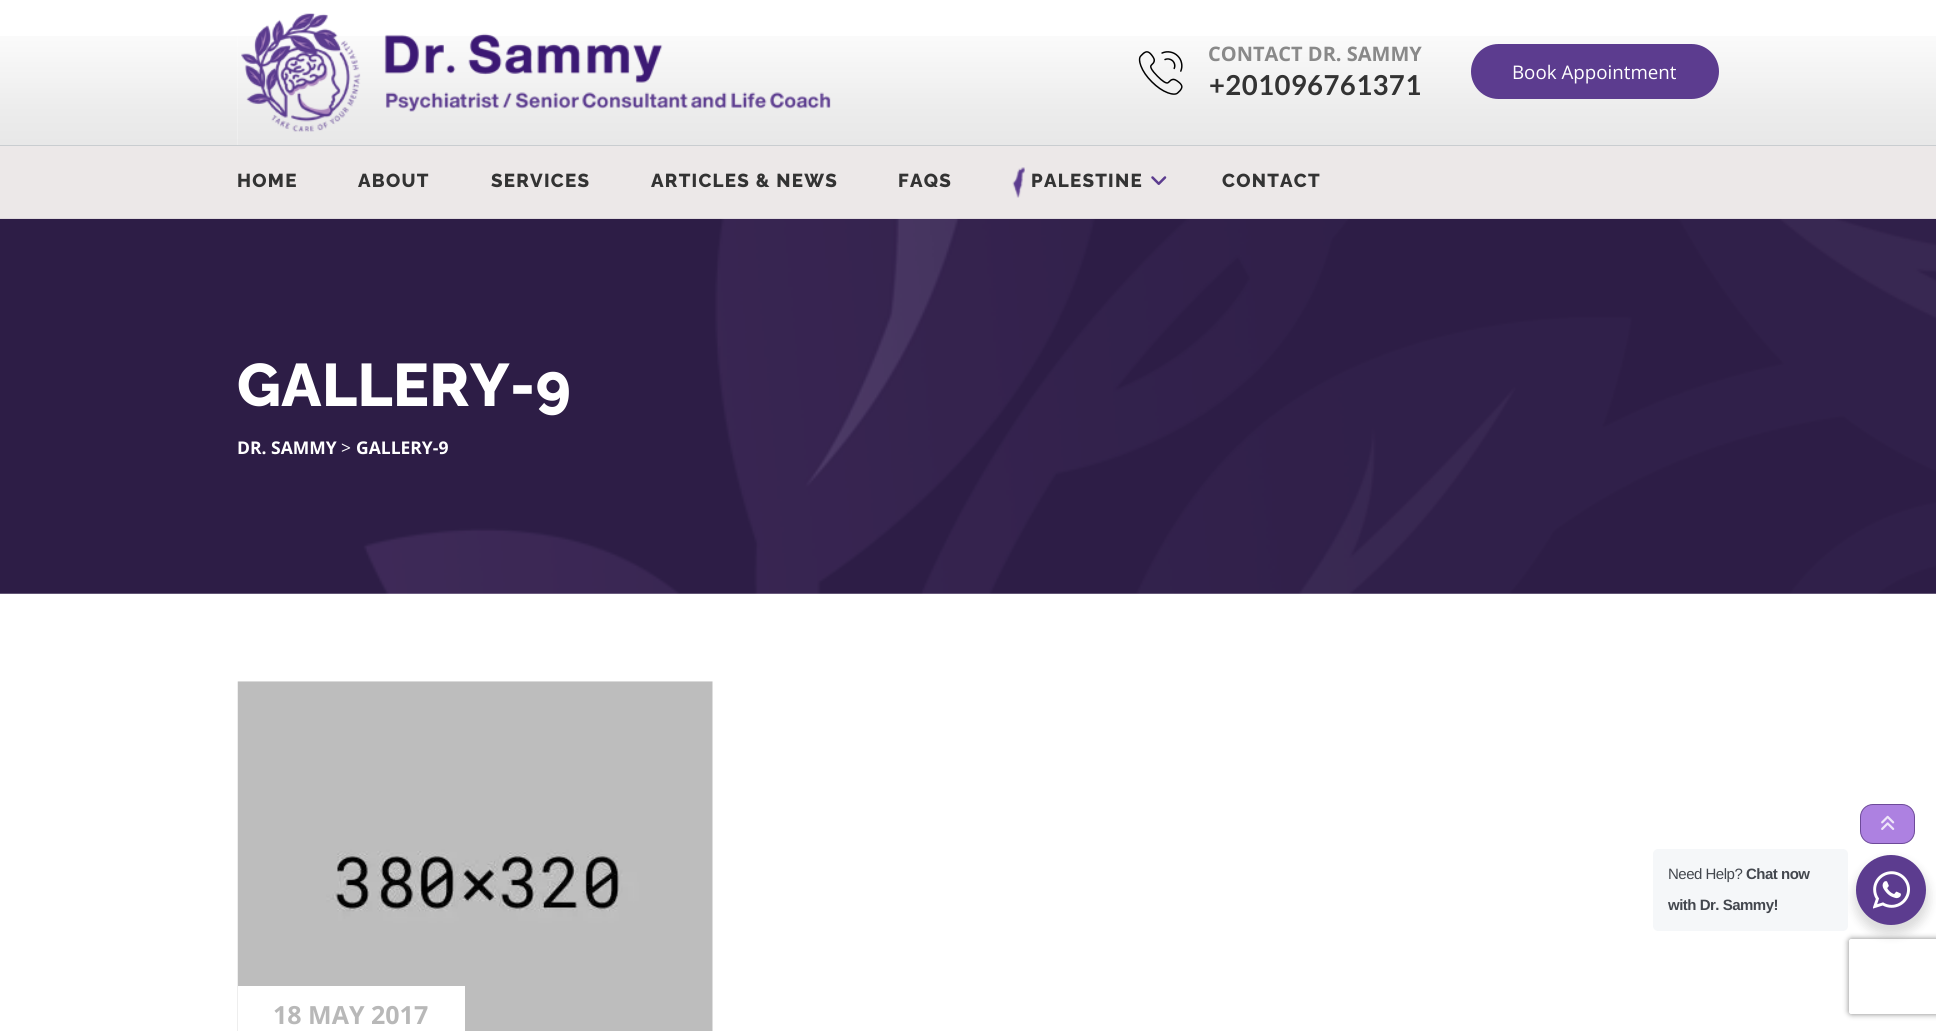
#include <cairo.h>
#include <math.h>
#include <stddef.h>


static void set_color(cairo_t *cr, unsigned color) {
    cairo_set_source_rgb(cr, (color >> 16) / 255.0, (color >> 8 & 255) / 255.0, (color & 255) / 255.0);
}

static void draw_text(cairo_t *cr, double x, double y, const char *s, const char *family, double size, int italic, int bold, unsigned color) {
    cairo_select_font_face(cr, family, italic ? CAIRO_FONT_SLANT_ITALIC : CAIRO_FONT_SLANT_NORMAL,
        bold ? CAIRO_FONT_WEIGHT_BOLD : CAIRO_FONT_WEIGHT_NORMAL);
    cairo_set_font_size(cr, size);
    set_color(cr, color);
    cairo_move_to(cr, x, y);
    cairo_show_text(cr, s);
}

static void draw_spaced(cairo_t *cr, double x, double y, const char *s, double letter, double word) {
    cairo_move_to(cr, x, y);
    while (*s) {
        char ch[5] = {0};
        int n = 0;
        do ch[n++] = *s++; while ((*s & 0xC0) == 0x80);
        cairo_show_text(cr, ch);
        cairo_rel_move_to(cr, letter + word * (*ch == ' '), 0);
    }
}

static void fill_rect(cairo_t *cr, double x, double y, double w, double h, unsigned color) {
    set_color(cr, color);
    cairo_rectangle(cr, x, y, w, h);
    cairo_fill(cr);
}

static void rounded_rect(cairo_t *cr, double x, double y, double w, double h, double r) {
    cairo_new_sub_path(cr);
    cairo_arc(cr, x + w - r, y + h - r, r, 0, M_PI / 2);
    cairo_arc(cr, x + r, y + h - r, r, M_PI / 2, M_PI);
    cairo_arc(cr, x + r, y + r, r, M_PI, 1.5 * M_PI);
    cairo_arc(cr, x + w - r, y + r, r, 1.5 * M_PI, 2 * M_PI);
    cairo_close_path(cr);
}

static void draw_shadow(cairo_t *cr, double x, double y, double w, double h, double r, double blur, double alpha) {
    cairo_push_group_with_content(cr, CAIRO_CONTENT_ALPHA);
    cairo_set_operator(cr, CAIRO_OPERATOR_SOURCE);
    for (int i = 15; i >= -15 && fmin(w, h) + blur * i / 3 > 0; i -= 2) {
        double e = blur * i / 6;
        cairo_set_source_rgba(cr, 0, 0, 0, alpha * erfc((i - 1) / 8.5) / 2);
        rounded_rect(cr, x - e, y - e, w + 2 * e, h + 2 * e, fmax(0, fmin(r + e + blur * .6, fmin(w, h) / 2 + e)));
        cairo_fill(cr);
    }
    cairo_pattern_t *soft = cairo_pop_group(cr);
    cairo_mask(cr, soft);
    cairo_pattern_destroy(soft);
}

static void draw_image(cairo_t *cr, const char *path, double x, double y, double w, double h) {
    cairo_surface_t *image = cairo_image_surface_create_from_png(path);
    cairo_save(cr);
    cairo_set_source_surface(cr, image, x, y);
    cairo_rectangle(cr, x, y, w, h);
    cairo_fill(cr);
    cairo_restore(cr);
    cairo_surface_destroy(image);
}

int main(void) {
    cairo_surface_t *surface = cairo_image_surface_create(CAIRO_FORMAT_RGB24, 1936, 1031);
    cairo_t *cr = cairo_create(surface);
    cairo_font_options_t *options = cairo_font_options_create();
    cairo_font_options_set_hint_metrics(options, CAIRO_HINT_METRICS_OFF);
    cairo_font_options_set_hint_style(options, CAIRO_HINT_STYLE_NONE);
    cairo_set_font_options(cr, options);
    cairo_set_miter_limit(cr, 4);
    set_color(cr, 0xFFFFFF);
    cairo_paint(cr);
    draw_image(cr, "assets/img2.png", 237, 36, 1463, 109);
    draw_image(cr, "assets/img1.png", 1138, 51, 45, 44);
    draw_text(cr, 1208, 61, "CONTACT DR. SAMMY", "Open Sans", 20, 0, 1, 0x898989);
    cairo_select_font_face(cr, "Lato", CAIRO_FONT_SLANT_NORMAL, CAIRO_FONT_WEIGHT_BOLD);
    cairo_set_font_size(cr, 27.5);
    set_color(cr, 0x333333);
    draw_spaced(cr, 1209, 95, "+201096761371", 0.4, 0);
    draw_image(cr, "assets/img5.png", 1700, 36, 236, 109);
    set_color(cr, 0x5C3C8F);
    rounded_rect(cr, 1471, 44, 248, 55, 27.5);
    cairo_fill(cr);
    draw_text(cr, 1512, 79, "Book Appointment", "Open Sans", 18.75, 0, 0, 0xFFFFFF);
    draw_image(cr, "assets/img3.png", 0, 36, 238, 109);
    draw_image(cr, "assets/img4.png", 241, 13, 590, 119);
    draw_image(cr, "assets/img8.png", 0, 218, 1936, 376);
    cairo_set_source_rgba(cr, 0.898, 0.875, 0.875, 0.7);
    cairo_rectangle(cr, 238, 146, 1462, 73);
    cairo_fill(cr);
    fill_rect(cr, 0, 145, 1936, 1, 0xC9CDD0);
    cairo_set_source_rgba(cr, 0.898, 0.875, 0.875, 0.7);
    cairo_rectangle(cr, 0, 146, 238, 73);
    cairo_fill(cr);
    cairo_select_font_face(cr, "Raleway ExtraBold", CAIRO_FONT_SLANT_NORMAL, CAIRO_FONT_WEIGHT_NORMAL);
    set_color(cr, 0x333333);
    draw_spaced(cr, 237, 187, "HOME", 1.25, 0);
    draw_spaced(cr, 358, 187, "ABOUT", 1.25, 0);
    draw_spaced(cr, 491, 187, "SERVICES", 1.25, 0);
    draw_spaced(cr, 651, 187, "ARTICLES & NEWS", 1.25, 0);
    draw_spaced(cr, 898, 187, "FAQS", 1.25, 0);
    draw_image(cr, "assets/img6.png", 1012, 167, 13, 31);
    draw_spaced(cr, 1031, 187, "PALESTINE", 1.25, 0);
    draw_image(cr, "assets/img7.png", 1151, 176, 16, 9);
    draw_spaced(cr, 1222, 187, "CONTACT", 1.25, 0);
    cairo_set_source_rgba(cr, 0.898, 0.875, 0.875, 0.7);
    cairo_rectangle(cr, 1700, 146, 236, 73);
    cairo_fill(cr);
    cairo_set_font_size(cr, 60);
    set_color(cr, 0xFFFFFF);
    draw_spaced(cr, 237, 406, "GALLERY-9", 0.4, 0);
    draw_text(cr, 237, 454, "DR. SAMMY", "Open Sans", 17.5, 0, 1, 0xFFFFFF);
    draw_text(cr, 341, 454, ">", "Open Sans", 17.5, 0, 0, 0xFFFFFF);
    draw_text(cr, 356, 454, "GALLERY-9", "Open Sans", 17.5, 0, 1, 0xFFFFFF);
    draw_image(cr, "assets/img9.png", 237, 681, 476, 350);
    fill_rect(cr, 238, 986, 227, 45, 0xFFFFFF);
    draw_text(cr, 273, 1024, "18 MAY 2017", "Open Sans", 25, 0, 1, 0xB8B8B8);
    set_color(cr, 0xAD81E1);
    rounded_rect(cr, 1860.5, 804.5, 54, 39, 12.5);
    cairo_fill_preserve(cr);
    set_color(cr, 0x6D4A99);
    cairo_set_line_width(cr, 1);
    cairo_stroke(cr);
    draw_image(cr, "assets/img10.png", 1881, 815, 14, 15);
    set_color(cr, 0x000000);
    draw_shadow(cr, 1854, 860, 75, 75, 37.5, 5, 0.14);
    cairo_save(cr);
    cairo_set_fill_rule(cr, CAIRO_FILL_RULE_EVEN_ODD);
    cairo_new_path(cr);
    cairo_move_to(cr, 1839, 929);
    cairo_line_to(cr, 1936, 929);
    cairo_line_to(cr, 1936, 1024);
    cairo_line_to(cr, 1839, 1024);
    cairo_close_path(cr);
    cairo_move_to(cr, 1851.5, 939);
    cairo_line_to(cr, 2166.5, 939);
    cairo_curve_to(cr, 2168, 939, 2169, 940, 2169, 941.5);
    cairo_line_to(cr, 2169, 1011.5);
    cairo_curve_to(cr, 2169, 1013, 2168, 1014, 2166.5, 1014);
    cairo_line_to(cr, 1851.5, 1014);
    cairo_curve_to(cr, 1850, 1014, 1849, 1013, 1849, 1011.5);
    cairo_line_to(cr, 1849, 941.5);
    cairo_curve_to(cr, 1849, 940, 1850, 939, 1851.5, 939);
    cairo_close_path(cr);
    cairo_clip(cr);
    set_color(cr, 0x808080);
    draw_shadow(cr, 1849, 939, 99, 75, 2.5, 3, 1);
    cairo_restore(cr);
    set_color(cr, 0xF5F7F9);
    rounded_rect(cr, 1653, 849, 195, 82, 5);
    cairo_fill(cr);
    cairo_select_font_face(cr, "Liberation Sans", CAIRO_FONT_SLANT_NORMAL, CAIRO_FONT_WEIGHT_NORMAL);
    cairo_set_font_size(cr, 15);
    set_color(cr, 0x43474E);
    draw_spaced(cr, 1668, 879, "Need Help?", -0.5, 0);
    cairo_select_font_face(cr, "Liberation Sans", CAIRO_FONT_SLANT_NORMAL, CAIRO_FONT_WEIGHT_BOLD);
    draw_spaced(cr, 1746, 879, "Chat now", -0.5, 0);
    draw_spaced(cr, 1668, 910, "with Dr. Sammy!", -0.5, 0);
    set_color(cr, 0x5C3C8F);
    cairo_new_path(cr);
    cairo_arc(cr, 1891, 890, 35, 0, 2 * M_PI);
    cairo_fill(cr);
    draw_image(cr, "assets/img11.png", 1873, 871, 37, 38);
    cairo_surface_write_to_png(surface, "output.png");
    cairo_font_options_destroy(options);
    cairo_destroy(cr);
    cairo_surface_destroy(surface);
    return 0;
}
